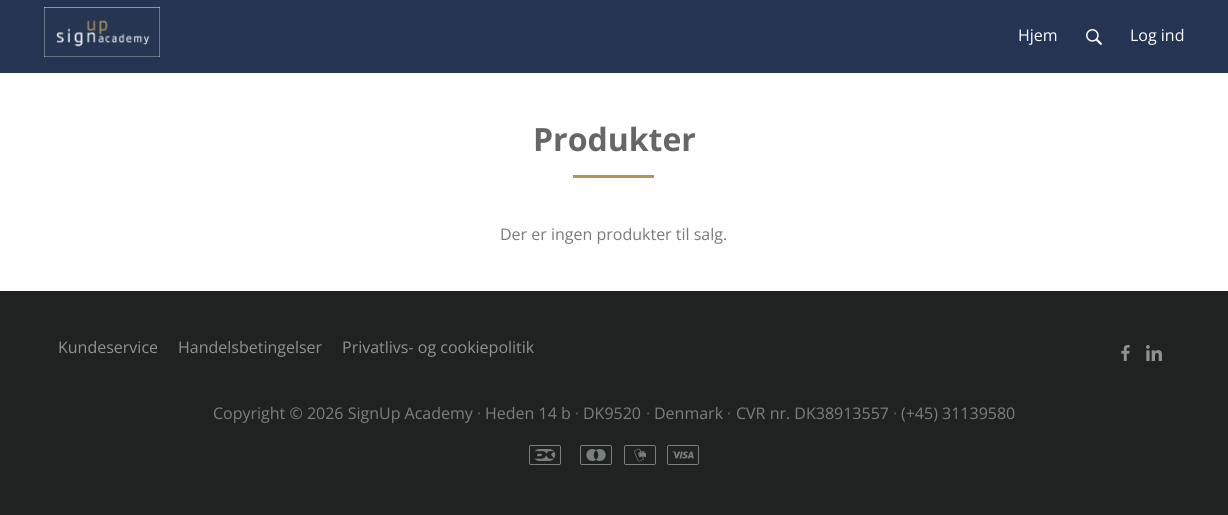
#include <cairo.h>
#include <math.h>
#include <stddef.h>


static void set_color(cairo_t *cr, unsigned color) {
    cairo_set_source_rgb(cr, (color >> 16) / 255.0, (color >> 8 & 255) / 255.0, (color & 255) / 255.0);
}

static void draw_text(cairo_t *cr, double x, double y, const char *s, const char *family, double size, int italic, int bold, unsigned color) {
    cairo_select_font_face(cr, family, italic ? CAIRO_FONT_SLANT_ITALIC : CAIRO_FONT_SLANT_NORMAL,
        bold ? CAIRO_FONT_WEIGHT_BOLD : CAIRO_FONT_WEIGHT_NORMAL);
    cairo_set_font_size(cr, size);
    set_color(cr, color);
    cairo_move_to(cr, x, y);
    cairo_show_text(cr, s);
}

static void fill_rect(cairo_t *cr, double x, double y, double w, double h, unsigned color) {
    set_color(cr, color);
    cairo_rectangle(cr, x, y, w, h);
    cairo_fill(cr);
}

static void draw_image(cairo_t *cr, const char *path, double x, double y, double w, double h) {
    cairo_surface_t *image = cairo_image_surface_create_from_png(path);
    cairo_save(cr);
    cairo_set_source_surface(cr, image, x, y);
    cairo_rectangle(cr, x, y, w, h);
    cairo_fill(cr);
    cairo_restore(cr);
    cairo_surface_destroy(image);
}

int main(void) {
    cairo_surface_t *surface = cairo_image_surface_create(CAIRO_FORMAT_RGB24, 1228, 515);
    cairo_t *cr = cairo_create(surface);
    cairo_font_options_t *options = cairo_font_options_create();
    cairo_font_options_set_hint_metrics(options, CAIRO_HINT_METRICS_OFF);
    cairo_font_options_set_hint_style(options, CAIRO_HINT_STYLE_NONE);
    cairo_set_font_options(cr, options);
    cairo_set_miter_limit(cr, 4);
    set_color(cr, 0xFFFFFF);
    cairo_paint(cr);
    fill_rect(cr, 0, 0, 1228, 73, 0x253453);
    draw_image(cr, "assets/img1.png", 44, 7, 116, 50);
    draw_text(cr, 1018, 41, "Hjem", "Open Sans", 16, 0, 0, 0xFFFFFF);
    draw_image(cr, "assets/img2.png", 1086, 29, 16, 16);
    draw_text(cr, 1130, 41, "Log ind", "Open Sans", 16, 0, 0, 0xFFFFFF);
    draw_text(cr, 533, 151, "Produkter", "Open Sans", 32, 0, 1, 0x666666);
    fill_rect(cr, 573, 175, 81, 3, 0xB4965D);
    draw_text(cr, 500, 240, "Der er ingen produkter til salg.", "Open Sans", 16, 0, 0, 0x7A7A7A);
    fill_rect(cr, 0, 291, 1228, 224, 0x1E2322);
    draw_text(cr, 58, 353, "Kundeservice", "Open Sans", 16, 0, 0, 0x8C9391);
    draw_text(cr, 178, 353, "Handelsbetingelser", "Open Sans", 16, 0, 0, 0x8C9391);
    draw_text(cr, 342, 353, "Privatlivs- og cookiepolitik", "Open Sans", 16, 0, 0, 0x8C9391);
    draw_image(cr, "assets/img3.png", 1121, 345, 9, 16);
    draw_image(cr, "assets/img4.png", 1146, 345, 16, 16);
    draw_text(cr, 213, 419, "Copyright © 2026 SignUp Academy", "Open Sans", 16, 0, 0, 0x78807D);
    draw_text(cr, 477, 419, "·", "Open Sans", 16, 0, 0, 0x5A615F);
    draw_text(cr, 485, 419, "Heden 14 b", "Open Sans", 16, 0, 0, 0x78807D);
    draw_text(cr, 575, 419, "·", "Open Sans", 16, 0, 0, 0x5A615F);
    draw_text(cr, 583, 419, "DK9520", "Open Sans", 16, 0, 0, 0x78807D);
    draw_text(cr, 646, 419, "·", "Open Sans", 16, 0, 0, 0x5A615F);
    draw_text(cr, 654, 419, "Denmark", "Open Sans", 16, 0, 0, 0x78807D);
    draw_text(cr, 727, 419, "·", "Open Sans", 16, 0, 0, 0x5A615F);
    draw_text(cr, 736, 419, "CVR nr. DK38913557", "Open Sans", 16, 0, 0, 0x78807D);
    draw_text(cr, 893, 419, "·", "Open Sans", 16, 0, 0, 0x5A615F);
    draw_text(cr, 901, 419, "(+45) 31139580", "Open Sans", 16, 0, 0, 0x78807D);
    draw_image(cr, "assets/img5.png", 529, 445, 32, 20);
    draw_image(cr, "assets/img6.png", 580, 445, 32, 20);
    draw_image(cr, "assets/img7.png", 624, 445, 32, 20);
    draw_image(cr, "assets/img8.png", 667, 445, 32, 20);
    cairo_surface_write_to_png(surface, "output.png");
    cairo_font_options_destroy(options);
    cairo_destroy(cr);
    cairo_surface_destroy(surface);
    return 0;
}
